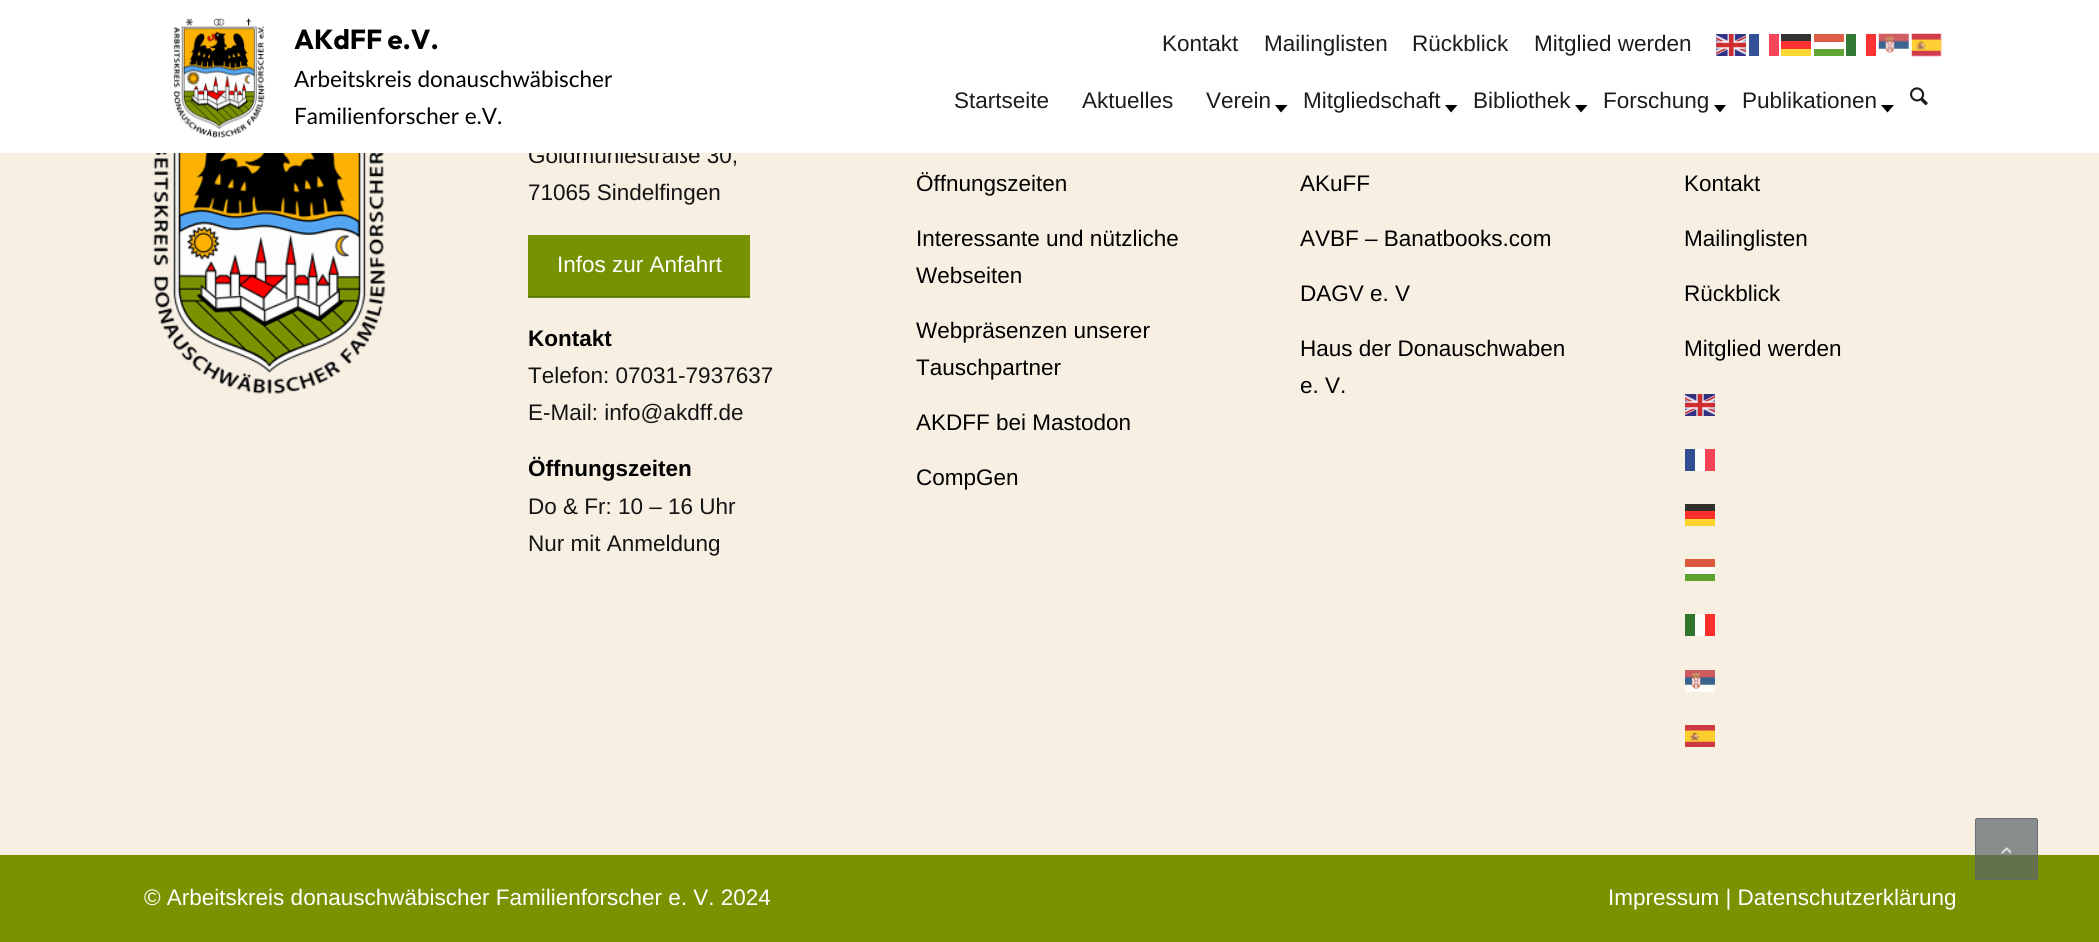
#include <cairo.h>
#include <math.h>
#include <stddef.h>


static void set_color(cairo_t *cr, unsigned color) {
    cairo_set_source_rgb(cr, (color >> 16) / 255.0, (color >> 8 & 255) / 255.0, (color & 255) / 255.0);
}

static void draw_text(cairo_t *cr, double x, double y, const char *s, const char *family, double size, int italic, int bold, unsigned color) {
    cairo_select_font_face(cr, family, italic ? CAIRO_FONT_SLANT_ITALIC : CAIRO_FONT_SLANT_NORMAL,
        bold ? CAIRO_FONT_WEIGHT_BOLD : CAIRO_FONT_WEIGHT_NORMAL);
    cairo_set_font_size(cr, size);
    set_color(cr, color);
    cairo_move_to(cr, x, y);
    cairo_show_text(cr, s);
}

static void fill_rect(cairo_t *cr, double x, double y, double w, double h, unsigned color) {
    set_color(cr, color);
    cairo_rectangle(cr, x, y, w, h);
    cairo_fill(cr);
}

static void rounded_rect(cairo_t *cr, double x, double y, double w, double h, double r) {
    cairo_new_sub_path(cr);
    cairo_arc(cr, x + w - r, y + h - r, r, 0, M_PI / 2);
    cairo_arc(cr, x + r, y + h - r, r, M_PI / 2, M_PI);
    cairo_arc(cr, x + r, y + r, r, M_PI, 1.5 * M_PI);
    cairo_arc(cr, x + w - r, y + r, r, 1.5 * M_PI, 2 * M_PI);
    cairo_close_path(cr);
}

static void draw_image(cairo_t *cr, const char *path, double x, double y, double w, double h) {
    cairo_surface_t *image = cairo_image_surface_create_from_png(path);
    cairo_save(cr);
    cairo_set_source_surface(cr, image, x, y);
    cairo_rectangle(cr, x, y, w, h);
    cairo_fill(cr);
    cairo_restore(cr);
    cairo_surface_destroy(image);
}

int main(void) {
    cairo_surface_t *surface = cairo_image_surface_create(CAIRO_FORMAT_RGB24, 2099, 942);
    cairo_t *cr = cairo_create(surface);
    cairo_font_options_t *options = cairo_font_options_create();
    cairo_font_options_set_hint_metrics(options, CAIRO_HINT_METRICS_OFF);
    cairo_font_options_set_hint_style(options, CAIRO_HINT_STYLE_NONE);
    cairo_set_font_options(cr, options);
    cairo_set_miter_limit(cr, 4);
    set_color(cr, 0xF7EFE2);
    cairo_paint(cr);
    draw_text(cr, 528, 163, "Goldmühlestraße 30,", "Liberation Sans", 22.5, 0, 0, 0x141414);
    fill_rect(cr, 0, 0, 2099, 153, 0xFFFFFF);
    draw_image(cr, "assets/img1.png", 173, 18, 92, 120);
    draw_text(cr, 294, 49, "AKdFF e.V.", "Outfit", 27.5, 0, 1, 0x000000);
    draw_text(cr, 294, 87, "Arbeitskreis donauschwäbischer", "Lato", 22.5, 0, 0, 0x000000);
    draw_text(cr, 294, 124, "Familienforscher e.V.", "Lato", 22.5, 0, 0, 0x000000);
    draw_text(cr, 954, 108, "Startseite", "Liberation Sans", 22.5, 0, 0, 0x1C1C1C);
    draw_text(cr, 1082, 108, "Aktuelles", "Liberation Sans", 22.5, 0, 0, 0x1C1C1C);
    draw_text(cr, 1206, 108, "Verein", "Liberation Sans", 22.5, 0, 0, 0x1C1C1C);
    set_color(cr, 0x000000);
    cairo_new_path(cr);
    cairo_move_to(cr, 1275, 105);
    cairo_line_to(cr, 1287.5, 105);
    cairo_line_to(cr, 1281, 112.5);
    cairo_close_path(cr);
    cairo_fill(cr);
    draw_text(cr, 1303, 108, "Mitgliedschaft", "Liberation Sans", 22.5, 0, 0, 0x1C1C1C);
    set_color(cr, 0x000000);
    cairo_new_path(cr);
    cairo_move_to(cr, 1445, 105);
    cairo_line_to(cr, 1457.5, 105);
    cairo_line_to(cr, 1451, 112.5);
    cairo_close_path(cr);
    cairo_fill(cr);
    draw_text(cr, 1473, 108, "Bibliothek", "Liberation Sans", 22.5, 0, 0, 0x1C1C1C);
    set_color(cr, 0x000000);
    cairo_new_path(cr);
    cairo_move_to(cr, 1575, 105);
    cairo_line_to(cr, 1587.5, 105);
    cairo_line_to(cr, 1581, 112.5);
    cairo_close_path(cr);
    cairo_fill(cr);
    draw_text(cr, 1603, 108, "Forschung", "Liberation Sans", 22.5, 0, 0, 0x1C1C1C);
    set_color(cr, 0x000000);
    cairo_new_path(cr);
    cairo_move_to(cr, 1714, 105);
    cairo_line_to(cr, 1726, 105);
    cairo_line_to(cr, 1720, 112.5);
    cairo_close_path(cr);
    cairo_fill(cr);
    draw_text(cr, 1742, 108, "Publikationen", "Liberation Sans", 22.5, 0, 0, 0x1C1C1C);
    set_color(cr, 0x000000);
    cairo_new_path(cr);
    cairo_move_to(cr, 1881, 105);
    cairo_line_to(cr, 1894, 105);
    cairo_line_to(cr, 1887.5, 112.5);
    cairo_close_path(cr);
    cairo_fill(cr);
    draw_image(cr, "assets/img2.png", 1910, 87, 18, 19);
    draw_text(cr, 1162, 51, "Kontakt", "Liberation Sans", 22.5, 0, 0, 0x1C1C1C);
    draw_text(cr, 1264, 51, "Mailinglisten", "Liberation Sans", 22.5, 0, 0, 0x1C1C1C);
    draw_text(cr, 1412, 51, "Rückblick", "Liberation Sans", 22.5, 0, 0, 0x1C1C1C);
    draw_text(cr, 1534, 51, "Mitglied werden", "Liberation Sans", 22.5, 0, 0, 0x1C1C1C);
    draw_image(cr, "assets/img3.png", 1716, 34, 30, 22);
    fill_rect(cr, 1749, 34, 10, 22, 0x335199);
    fill_rect(cr, 1769, 34, 10, 22, 0xF54659);
    fill_rect(cr, 1781, 34, 30, 7, 0x333333);
    fill_rect(cr, 1814, 34, 30, 8, 0xDD5D45);
    fill_rect(cr, 1846, 34, 10, 22, 0x337933);
    fill_rect(cr, 1866, 34, 10, 22, 0xFD3333);
    draw_image(cr, "assets/img4.png", 1878, 33, 31, 20);
    draw_image(cr, "assets/img5.png", 1911, 33, 31, 24);
    fill_rect(cr, 1781, 41, 30, 8, 0xFF3333);
    fill_rect(cr, 1781, 49, 30, 7, 0xFFD633);
    fill_rect(cr, 1814, 49, 30, 7, 0x60A433);
    draw_image(cr, "assets/img6.png", 153, 153, 233, 241);
    draw_text(cr, 528, 200, "71065 Sindelfingen", "Liberation Sans", 22.5, 0, 0, 0x141414);
    fill_rect(cr, 528, 235, 222, 63, 0x779200);
    fill_rect(cr, 528, 296, 222, 1, 0x557000);
    draw_text(cr, 557, 272, "Infos zur Anfahrt", "Liberation Sans", 22.5, 0, 0, 0xFFFFFF);
    draw_text(cr, 528, 346, "Kontakt", "Liberation Sans", 22.5, 0, 1, 0x000000);
    draw_text(cr, 528, 383, "Telefon: 07031-7937637", "Liberation Sans", 22.5, 0, 0, 0x141414);
    draw_text(cr, 528, 420, "E-Mail: info@akdff.de", "Liberation Sans", 22.5, 0, 0, 0x141414);
    draw_text(cr, 528, 476, "Öffnungszeiten", "Liberation Sans", 22.5, 0, 1, 0x000000);
    draw_text(cr, 528, 514, "Do & Fr: 10 – 16 Uhr", "Liberation Sans", 22.5, 0, 0, 0x141414);
    draw_text(cr, 528, 551, "Nur mit Anmeldung", "Liberation Sans", 22.5, 0, 0, 0x141414);
    draw_text(cr, 916, 191, "Öffnungszeiten", "Liberation Sans", 22.5, 0, 0, 0x000000);
    draw_text(cr, 916, 246, "Interessante und nützliche", "Liberation Sans", 22.5, 0, 0, 0x000000);
    draw_text(cr, 916, 283, "Webseiten", "Liberation Sans", 22.5, 0, 0, 0x000000);
    draw_text(cr, 916, 338, "Webpräsenzen unserer", "Liberation Sans", 22.5, 0, 0, 0x000000);
    draw_text(cr, 916, 375, "Tauschpartner", "Liberation Sans", 22.5, 0, 0, 0x000000);
    draw_text(cr, 916, 430, "AKDFF bei Mastodon", "Liberation Sans", 22.5, 0, 0, 0x000000);
    draw_text(cr, 916, 485, "CompGen", "Liberation Sans", 22.5, 0, 0, 0x000000);
    draw_text(cr, 1300, 191, "AKuFF", "Liberation Sans", 22.5, 0, 0, 0x000000);
    draw_text(cr, 1300, 246, "AVBF – Banatbooks.com", "Liberation Sans", 22.5, 0, 0, 0x000000);
    draw_text(cr, 1300, 301, "DAGV e. V", "Liberation Sans", 22.5, 0, 0, 0x000000);
    draw_text(cr, 1300, 356, "Haus der Donauschwaben", "Liberation Sans", 22.5, 0, 0, 0x000000);
    draw_text(cr, 1300, 393, "e. V.", "Liberation Sans", 22.5, 0, 0, 0x000000);
    draw_text(cr, 1684, 191, "Kontakt", "Liberation Sans", 22.5, 0, 0, 0x000000);
    draw_text(cr, 1684, 246, "Mailinglisten", "Liberation Sans", 22.5, 0, 0, 0x000000);
    draw_text(cr, 1684, 301, "Rückblick", "Liberation Sans", 22.5, 0, 0, 0x000000);
    draw_text(cr, 1684, 356, "Mitglied werden", "Liberation Sans", 22.5, 0, 0, 0x000000);
    draw_image(cr, "assets/img7.png", 1685, 394, 30, 22);
    fill_rect(cr, 1685, 449, 10, 22, 0x314E93);
    fill_rect(cr, 1695, 449, 10, 22, 0xFDFCF9);
    fill_rect(cr, 1705, 449, 10, 22, 0xF44354);
    fill_rect(cr, 1685, 504, 30, 7, 0x31302D);
    fill_rect(cr, 1685, 511, 30, 8, 0xFD302D);
    fill_rect(cr, 1685, 519, 30, 7, 0xFDD32D);
    fill_rect(cr, 1685, 559, 30, 8, 0xDB5A3F);
    fill_rect(cr, 1685, 567, 30, 7, 0xFDFCF9);
    fill_rect(cr, 1685, 574, 30, 7, 0x5EA12D);
    fill_rect(cr, 1685, 614, 10, 22, 0x31752D);
    fill_rect(cr, 1695, 614, 10, 22, 0xFDFCF9);
    fill_rect(cr, 1705, 614, 10, 22, 0xFB302D);
    draw_image(cr, "assets/img8.png", 1685, 670, 30, 22);
    draw_image(cr, "assets/img9.png", 1685, 725, 30, 22);
    fill_rect(cr, 0, 855, 2099, 87, 0x789200);
    draw_text(cr, 144, 905, "© Arbeitskreis donauschwäbischer Familienforscher e. V. 2024", "Liberation Sans", 22.5, 0, 0, 0xFFFFFF);
    draw_text(cr, 1608, 905, "Impressum | Datenschutzerklärung", "Liberation Sans", 22.5, 0, 0, 0xFFFFFF);
    cairo_set_source_rgba(cr, 0.357, 0.392, 0.42, 0.7);
    rounded_rect(cr, 1975, 818, 63, 62, 2.5);
    cairo_fill(cr);
    rounded_rect(cr, 1975.5, 818.5, 62, 61, 2);
    cairo_set_line_width(cr, 1);
    cairo_stroke(cr);
    draw_image(cr, "assets/img10.png", 2001, 847, 10, 7);
    cairo_surface_write_to_png(surface, "output.png");
    cairo_font_options_destroy(options);
    cairo_destroy(cr);
    cairo_surface_destroy(surface);
    return 0;
}
